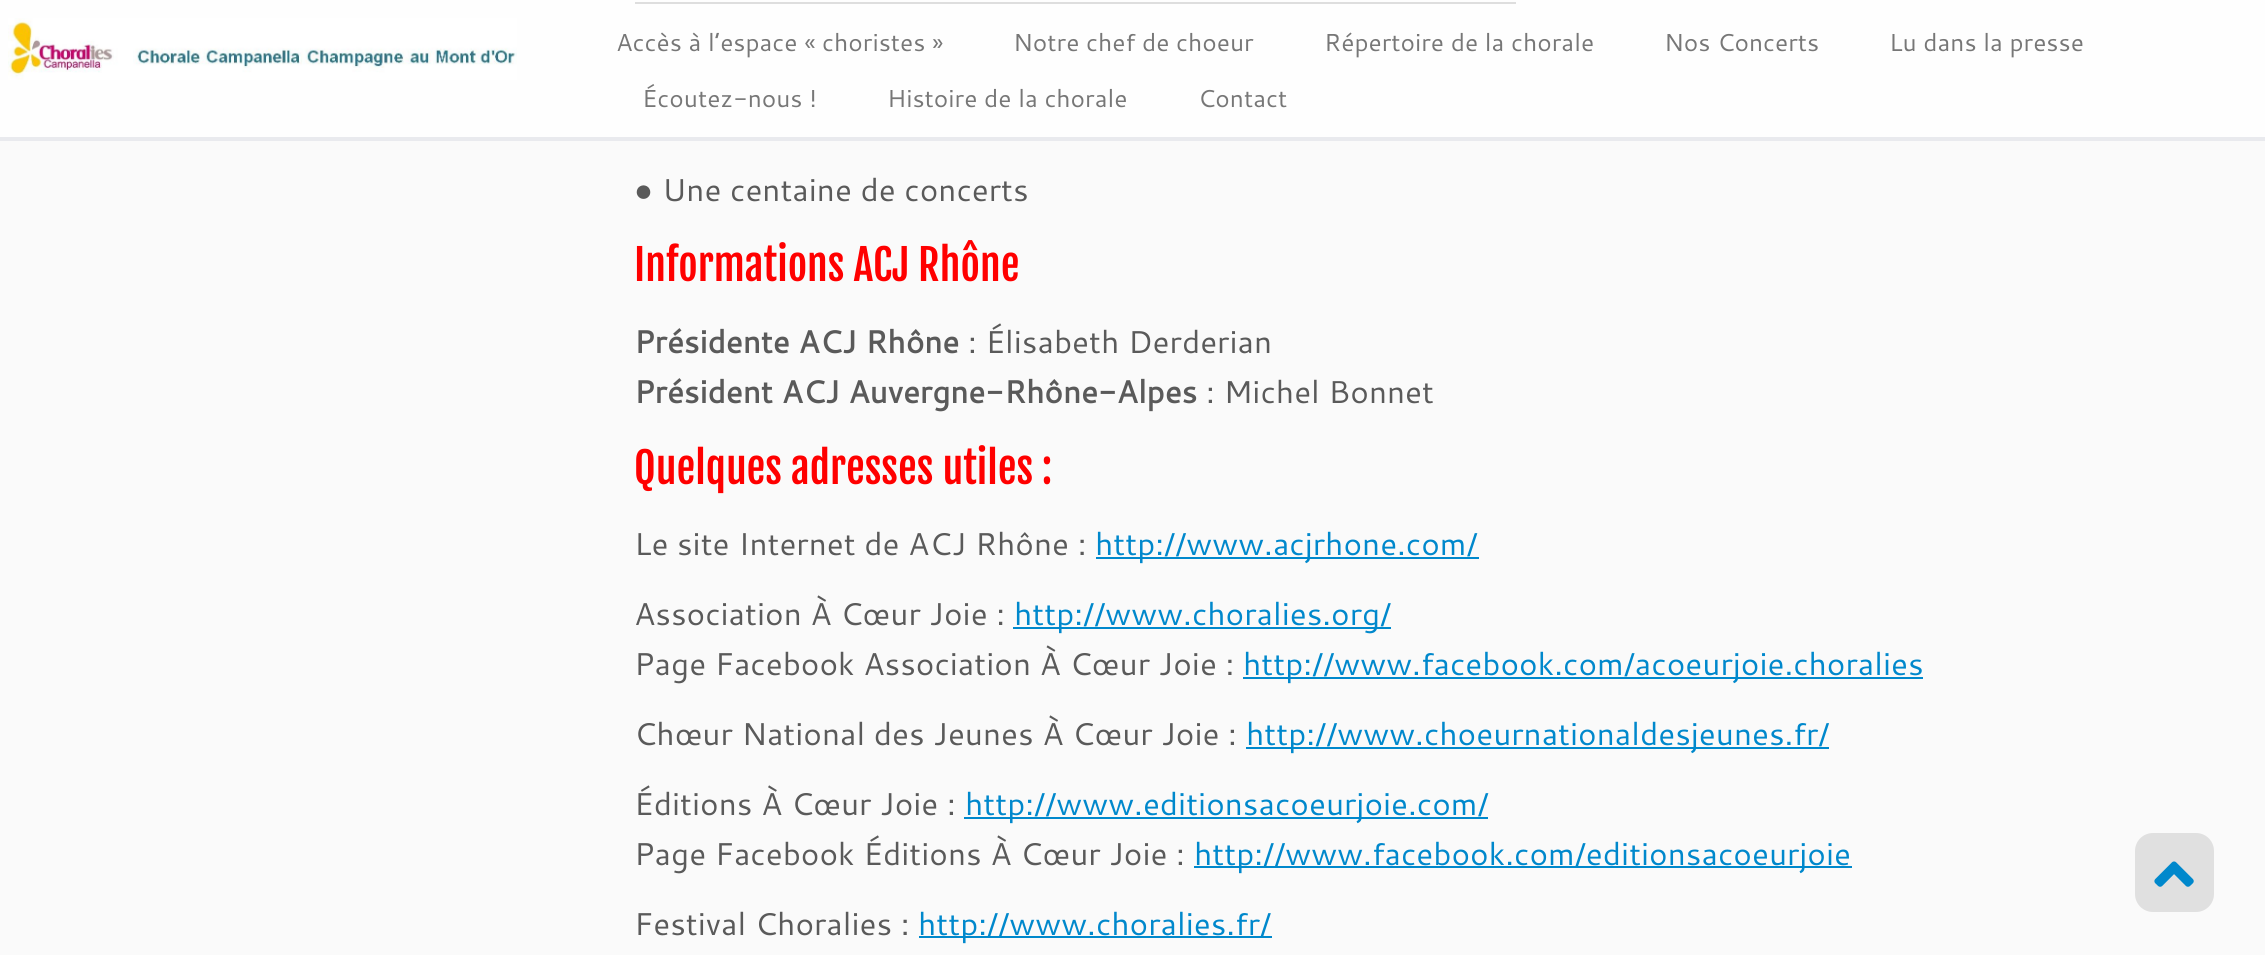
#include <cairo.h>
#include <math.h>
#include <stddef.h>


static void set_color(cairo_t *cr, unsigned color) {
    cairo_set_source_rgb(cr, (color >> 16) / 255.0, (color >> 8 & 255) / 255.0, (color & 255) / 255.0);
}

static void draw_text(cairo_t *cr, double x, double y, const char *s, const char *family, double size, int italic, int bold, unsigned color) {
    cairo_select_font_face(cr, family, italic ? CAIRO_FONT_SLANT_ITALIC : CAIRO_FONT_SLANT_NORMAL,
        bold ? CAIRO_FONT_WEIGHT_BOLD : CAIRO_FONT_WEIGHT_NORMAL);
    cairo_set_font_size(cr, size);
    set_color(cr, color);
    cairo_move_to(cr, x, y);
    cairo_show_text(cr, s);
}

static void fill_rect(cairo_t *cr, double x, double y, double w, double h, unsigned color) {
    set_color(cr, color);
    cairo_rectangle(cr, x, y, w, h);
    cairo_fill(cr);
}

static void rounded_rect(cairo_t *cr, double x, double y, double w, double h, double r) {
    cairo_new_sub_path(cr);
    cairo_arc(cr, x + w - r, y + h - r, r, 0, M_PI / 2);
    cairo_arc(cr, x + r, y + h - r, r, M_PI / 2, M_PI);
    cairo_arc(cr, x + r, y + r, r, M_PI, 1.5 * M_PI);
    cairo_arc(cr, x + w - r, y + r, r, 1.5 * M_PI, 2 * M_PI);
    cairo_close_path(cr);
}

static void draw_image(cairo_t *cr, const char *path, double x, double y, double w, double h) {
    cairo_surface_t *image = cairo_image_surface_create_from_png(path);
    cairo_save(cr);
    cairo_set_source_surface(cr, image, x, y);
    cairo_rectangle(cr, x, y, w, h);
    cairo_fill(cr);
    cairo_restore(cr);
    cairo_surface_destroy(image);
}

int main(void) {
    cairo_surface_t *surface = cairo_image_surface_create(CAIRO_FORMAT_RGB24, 2265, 955);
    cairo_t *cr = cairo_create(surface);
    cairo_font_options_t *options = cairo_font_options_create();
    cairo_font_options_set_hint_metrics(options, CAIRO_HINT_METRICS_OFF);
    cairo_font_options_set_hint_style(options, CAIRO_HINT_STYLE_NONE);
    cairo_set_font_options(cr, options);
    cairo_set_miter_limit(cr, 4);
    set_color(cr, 0xFAFAFA);
    cairo_paint(cr);
    fill_rect(cr, 635, 2, 881, 2, 0x5A5A5A);
    cairo_set_source_rgba(cr, 1, 1, 1, 0.8);
    cairo_rectangle(cr, 0, 0, 2265, 137);
    cairo_fill(cr);
    fill_rect(cr, 0, 137, 2265, 4, 0xE9EAEE);
    draw_image(cr, "assets/img1.png", 8, 18, 509, 62);
    draw_text(cr, 616, 51, "Accès à l’espace « choristes »", "Cantarell", 24.5, 0, 0, 0x777777);
    draw_text(cr, 1013, 51, "Notre chef de choeur", "Cantarell", 24.5, 0, 0, 0x777777);
    draw_text(cr, 1324, 51, "Répertoire de la chorale", "Cantarell", 24.5, 0, 0, 0x777777);
    draw_text(cr, 1664, 51, "Nos Concerts", "Cantarell", 24.5, 0, 0, 0x777777);
    draw_text(cr, 1889, 51, "Lu dans la presse", "Cantarell", 24.5, 0, 0, 0x777777);
    draw_text(cr, 642, 107, "Écoutez-nous !", "Cantarell", 24.5, 0, 0, 0x777777);
    draw_text(cr, 887, 107, "Histoire de la chorale", "Cantarell", 24.5, 0, 0, 0x777777);
    draw_text(cr, 1198, 107, "Contact", "Cantarell", 24.5, 0, 0, 0x777777);
    draw_text(cr, 634, 201, "●", "Liberation Serif", 31.5, 0, 0, 0x5A5A5A);
    draw_text(cr, 662, 201, "Une centaine de concerts", "Cantarell", 31.5, 0, 0, 0x5A5A5A);
    draw_text(cr, 634, 281, "Informations ACJ Rhône", "Fjalla One", 42, 0, 0, 0xFF0000);
    draw_text(cr, 634, 353, "Présidente ACJ Rhône", "Cantarell", 31.5, 0, 1, 0x5A5A5A);
    draw_text(cr, 968, 353, ": Élisabeth Derderian", "Cantarell", 31.5, 0, 0, 0x5A5A5A);
    draw_text(cr, 634, 403, "Président ACJ Auvergne-Rhône-Alpes", "Cantarell", 31.5, 0, 1, 0x5A5A5A);
    draw_text(cr, 1206, 403, ": Michel Bonnet", "Cantarell", 31.5, 0, 0, 0x5A5A5A);
    draw_text(cr, 634, 484, "Quelques adresses utiles :", "Fjalla One", 42, 0, 0, 0xFF0000);
    draw_text(cr, 634, 555, "Le site Internet de ACJ Rhône :", "Cantarell", 31.5, 0, 0, 0x5A5A5A);
    fill_rect(cr, 1096, 557, 383, 2, 0x0088CC);
    draw_text(cr, 1095, 555, "http://www.acjrhone.com/", "Cantarell", 31.5, 0, 0, 0x0088CC);
    draw_text(cr, 634, 625, "Association À Cœur Joie :", "Cantarell", 31.5, 0, 0, 0x5A5A5A);
    fill_rect(cr, 1013, 627, 378, 2, 0x0088CC);
    draw_text(cr, 1014, 625, "http://www.choralies.org/", "Cantarell", 31.5, 0, 0, 0x0088CC);
    draw_text(cr, 634, 675, "Page Facebook Association À Cœur Joie :", "Cantarell", 31.5, 0, 0, 0x5A5A5A);
    fill_rect(cr, 1243, 677, 680, 2, 0x0088CC);
    draw_text(cr, 1243, 675, "http://www.facebook.com/acoeurjoie.choralies", "Cantarell", 31.5, 0, 0, 0x0088CC);
    draw_text(cr, 634, 745, "Chœur National des Jeunes À Cœur Joie :", "Cantarell", 31.5, 0, 0, 0x5A5A5A);
    fill_rect(cr, 1246, 747, 583, 2, 0x0088CC);
    draw_text(cr, 1246, 745, "http://www.choeurnationaldesjeunes.fr/", "Cantarell", 31.5, 0, 0, 0x0088CC);
    draw_text(cr, 634, 815, "Éditions À Cœur Joie :", "Cantarell", 31.5, 0, 0, 0x5A5A5A);
    fill_rect(cr, 964, 817, 524, 2, 0x0088CC);
    draw_text(cr, 965, 815, "http://www.editionsacoeurjoie.com/", "Cantarell", 31.5, 0, 0, 0x0088CC);
    draw_text(cr, 634, 865, "Page Facebook Éditions À Cœur Joie :", "Cantarell", 31.5, 0, 0, 0x5A5A5A);
    fill_rect(cr, 1194, 866, 658, 2, 0x0088CC);
    draw_text(cr, 1194, 865, "http://www.facebook.com/editionsacoeurjoie", "Cantarell", 31.5, 0, 0, 0x0088CC);
    draw_text(cr, 634, 935, "Festival Choralies :", "Cantarell", 31.5, 0, 0, 0x5A5A5A);
    fill_rect(cr, 919, 936, 353, 2, 0x0088CC);
    draw_text(cr, 918, 935, "http://www.choralies.fr/", "Cantarell", 31.5, 0, 0, 0x0088CC);
    set_color(cr, 0xE0E0E0);
    rounded_rect(cr, 2135, 833, 79, 79, 18);
    cairo_fill(cr);
    draw_image(cr, "assets/img2.png", 2154, 861, 40, 26);
    cairo_surface_write_to_png(surface, "output.png");
    cairo_font_options_destroy(options);
    cairo_destroy(cr);
    cairo_surface_destroy(surface);
    return 0;
}
